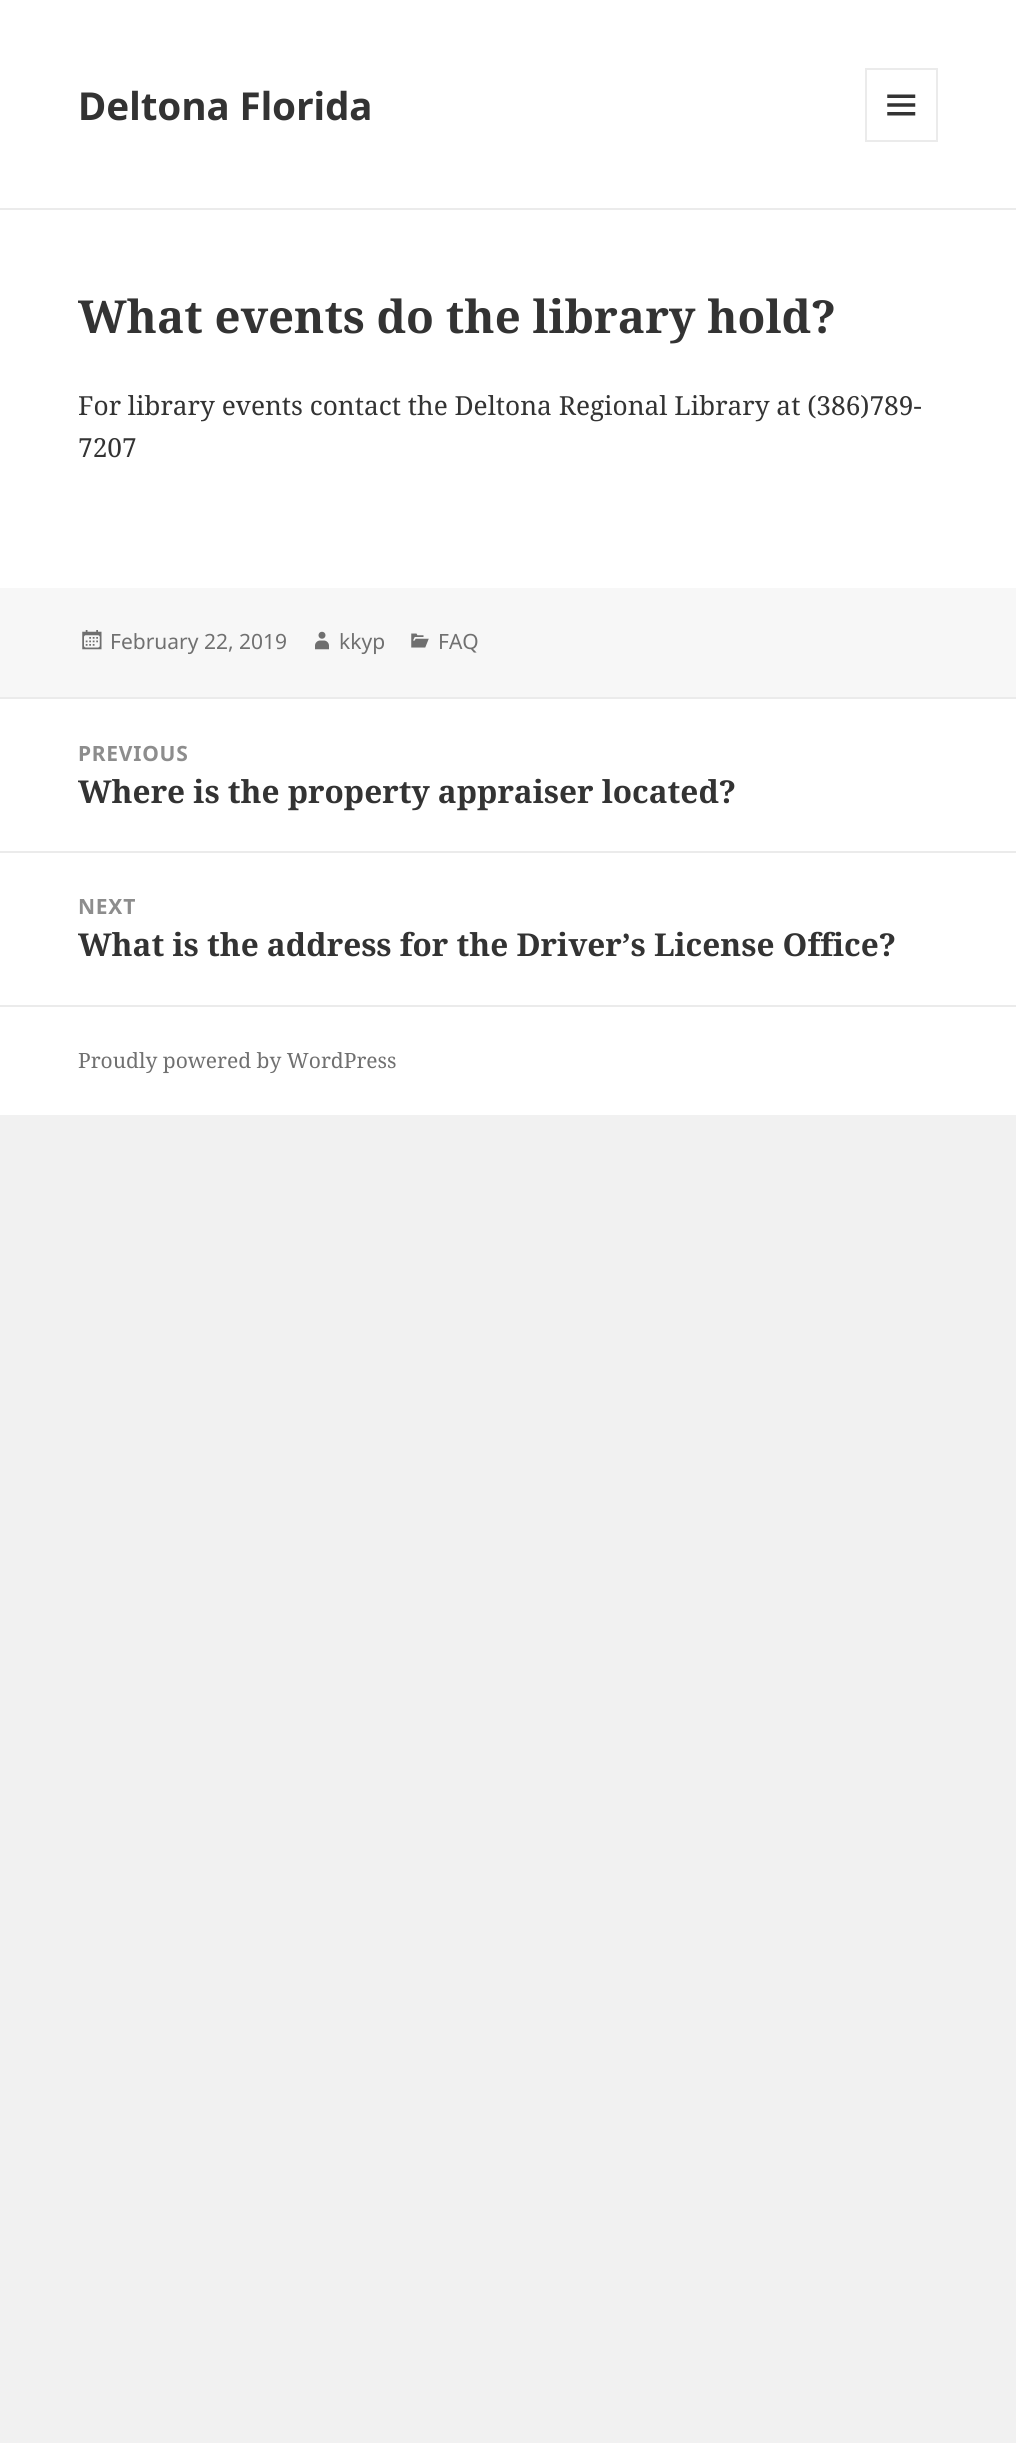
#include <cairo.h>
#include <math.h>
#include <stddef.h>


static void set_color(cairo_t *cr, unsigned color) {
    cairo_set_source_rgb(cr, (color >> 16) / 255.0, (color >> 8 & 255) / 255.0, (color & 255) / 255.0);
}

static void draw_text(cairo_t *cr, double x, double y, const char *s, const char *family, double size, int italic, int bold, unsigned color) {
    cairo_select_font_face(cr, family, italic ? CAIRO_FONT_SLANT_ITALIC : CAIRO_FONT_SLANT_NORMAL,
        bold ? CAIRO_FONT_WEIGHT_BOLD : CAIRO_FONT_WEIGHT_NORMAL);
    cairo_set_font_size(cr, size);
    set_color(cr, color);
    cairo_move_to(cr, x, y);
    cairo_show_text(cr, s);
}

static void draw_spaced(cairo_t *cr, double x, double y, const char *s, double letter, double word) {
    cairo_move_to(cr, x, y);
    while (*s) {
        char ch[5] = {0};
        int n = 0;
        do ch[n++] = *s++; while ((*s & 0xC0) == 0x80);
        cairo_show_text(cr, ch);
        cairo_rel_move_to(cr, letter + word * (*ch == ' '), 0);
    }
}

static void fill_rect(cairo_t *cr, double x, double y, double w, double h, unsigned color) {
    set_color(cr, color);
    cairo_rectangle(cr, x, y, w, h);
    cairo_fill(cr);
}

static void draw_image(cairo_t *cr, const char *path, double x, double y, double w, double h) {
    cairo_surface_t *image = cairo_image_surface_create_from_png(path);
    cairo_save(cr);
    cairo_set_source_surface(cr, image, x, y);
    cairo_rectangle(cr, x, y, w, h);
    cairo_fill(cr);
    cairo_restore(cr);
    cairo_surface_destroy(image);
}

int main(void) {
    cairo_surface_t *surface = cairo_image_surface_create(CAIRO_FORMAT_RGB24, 1016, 2443);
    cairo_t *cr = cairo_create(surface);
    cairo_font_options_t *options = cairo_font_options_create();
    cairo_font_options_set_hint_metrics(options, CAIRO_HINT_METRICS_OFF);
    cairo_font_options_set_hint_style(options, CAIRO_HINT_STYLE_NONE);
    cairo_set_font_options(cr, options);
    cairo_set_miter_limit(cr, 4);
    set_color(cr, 0xF1F1F1);
    cairo_paint(cr);
    fill_rect(cr, 0, 0, 1016, 208, 0xFFFFFF);
    fill_rect(cr, 0, 208, 1016, 2, 0xEBEBEB);
    draw_text(cr, 78, 120, "Deltona Florida", "Noto Sans", 38.5, 0, 1, 0x333333);
    cairo_rectangle(cr, 866, 69, 71, 72);
    set_color(cr, 0xEBEBEB);
    cairo_stroke(cr);
    draw_image(cr, "assets/img1.png", 887, 94, 29, 22);
    fill_rect(cr, 0, 210, 1016, 378, 0xFFFFFF);
    draw_text(cr, 78, 333, "What events do the library hold?", "Noto Serif", 45.5, 0, 1, 0x333333);
    draw_text(cr, 78, 415, "For library events contact the Deltona Regional Library at (386)789-", "Noto Serif", 26.25, 0, 0, 0x333333);
    draw_text(cr, 78, 457, "7207", "Noto Serif", 26.25, 0, 0, 0x333333);
    fill_rect(cr, 0, 588, 1016, 109, 0xF7F7F7);
    draw_image(cr, "assets/img2.png", 82, 630, 20, 20);
    draw_text(cr, 110, 649, "February 22, 2019", "Noto Sans", 21, 0, 0, 0x707070);
    draw_image(cr, "assets/img3.png", 315, 631, 14, 19);
    draw_text(cr, 339, 649, "kkyp", "Noto Sans", 21, 0, 0, 0x707070);
    draw_image(cr, "assets/img4.png", 411, 633, 18, 15);
    draw_text(cr, 438, 649, "FAQ", "Noto Sans", 21, 0, 0, 0x707070);
    fill_rect(cr, 0, 699, 1016, 306, 0xFFFFFF);
    fill_rect(cr, 0, 697, 1016, 2, 0xEBEBEB);
    cairo_select_font_face(cr, "Noto Sans", CAIRO_FONT_SLANT_NORMAL, CAIRO_FONT_WEIGHT_BOLD);
    set_color(cr, 0x8D8D8D);
    draw_spaced(cr, 78, 761, "PREVIOUS", 0.75, 0);
    draw_text(cr, 78, 803, "Where is the property appraiser located?", "Noto Serif", 31.5, 0, 1, 0x333333);
    fill_rect(cr, 0, 851, 1016, 2, 0xEBEBEB);
    cairo_select_font_face(cr, "Noto Sans", CAIRO_FONT_SLANT_NORMAL, CAIRO_FONT_WEIGHT_BOLD);
    cairo_set_font_size(cr, 21);
    set_color(cr, 0x8D8D8D);
    draw_spaced(cr, 78, 914, "NEXT", 0.75, 0);
    draw_text(cr, 78, 956, "What is the address for the Driver’s License Office?", "Noto Serif", 31.5, 0, 1, 0x333333);
    fill_rect(cr, 0, 1007, 1016, 108, 0xFFFFFF);
    fill_rect(cr, 0, 1005, 1016, 2, 0xEBEBEB);
    draw_text(cr, 78, 1068, "Proudly powered by WordPress", "Noto Serif", 21, 0, 0, 0x707070);
    cairo_surface_write_to_png(surface, "output.png");
    cairo_font_options_destroy(options);
    cairo_destroy(cr);
    cairo_surface_destroy(surface);
    return 0;
}
